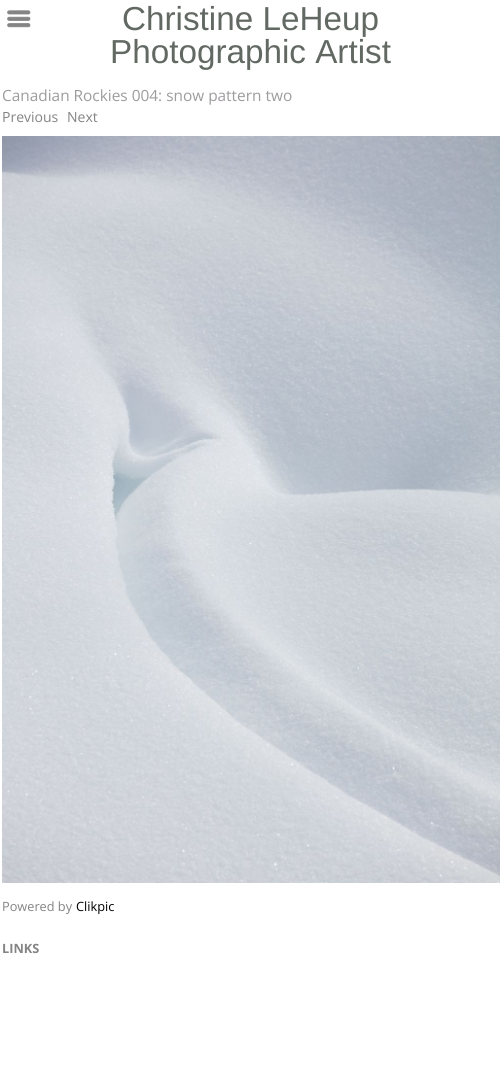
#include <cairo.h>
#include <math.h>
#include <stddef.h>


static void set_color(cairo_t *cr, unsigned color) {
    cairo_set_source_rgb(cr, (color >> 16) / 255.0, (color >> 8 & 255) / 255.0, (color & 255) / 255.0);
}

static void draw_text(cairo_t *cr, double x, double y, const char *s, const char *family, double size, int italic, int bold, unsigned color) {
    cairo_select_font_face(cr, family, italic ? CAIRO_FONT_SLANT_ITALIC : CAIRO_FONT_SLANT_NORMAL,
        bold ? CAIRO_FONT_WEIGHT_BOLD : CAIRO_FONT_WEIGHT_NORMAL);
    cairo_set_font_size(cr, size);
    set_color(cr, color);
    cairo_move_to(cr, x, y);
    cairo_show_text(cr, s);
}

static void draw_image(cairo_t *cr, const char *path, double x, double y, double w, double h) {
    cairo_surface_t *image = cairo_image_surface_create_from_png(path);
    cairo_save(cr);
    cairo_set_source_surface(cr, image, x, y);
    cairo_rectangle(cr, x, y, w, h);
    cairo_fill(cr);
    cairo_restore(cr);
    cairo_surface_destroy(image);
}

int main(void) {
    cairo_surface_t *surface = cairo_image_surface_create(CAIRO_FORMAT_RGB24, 502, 1075);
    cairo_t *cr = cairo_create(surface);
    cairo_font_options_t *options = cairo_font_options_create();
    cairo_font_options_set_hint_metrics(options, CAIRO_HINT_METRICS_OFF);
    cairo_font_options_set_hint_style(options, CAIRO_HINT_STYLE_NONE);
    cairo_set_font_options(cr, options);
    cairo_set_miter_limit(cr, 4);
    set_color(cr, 0xFFFFFF);
    cairo_paint(cr);
    draw_image(cr, "assets/img1.png", 7, 10, 24, 18);
    draw_text(cr, 122, 30, "Christine LeHeup", "Liberation Sans", 33.25, 0, 0, 0x626963);
    draw_text(cr, 110, 63, "Photographic Artist", "Liberation Sans", 33.25, 0, 0, 0x626963);
    draw_text(cr, 2, 101, "Canadian Rockies 004: snow pattern two", "Open Sans", 15.4, 0, 0, 0x9E9B9E);
    draw_text(cr, 2, 122, "Previous", "Open Sans", 14, 0, 0, 0x848484);
    draw_text(cr, 67, 122, "Next", "Open Sans", 14, 0, 0, 0x848484);
    draw_image(cr, "assets/img2.png", 2, 136, 498, 747);
    draw_text(cr, 2, 911, "Powered by", "Open Sans", 12.75, 0, 0, 0x848484);
    draw_text(cr, 76, 911, "Clikpic", "Open Sans", 12.75, 0, 0, 0x000000);
    draw_text(cr, 2, 953, "LINKS", "Open Sans", 12.75, 0, 1, 0x848484);
    cairo_surface_write_to_png(surface, "output.png");
    cairo_font_options_destroy(options);
    cairo_destroy(cr);
    cairo_surface_destroy(surface);
    return 0;
}
